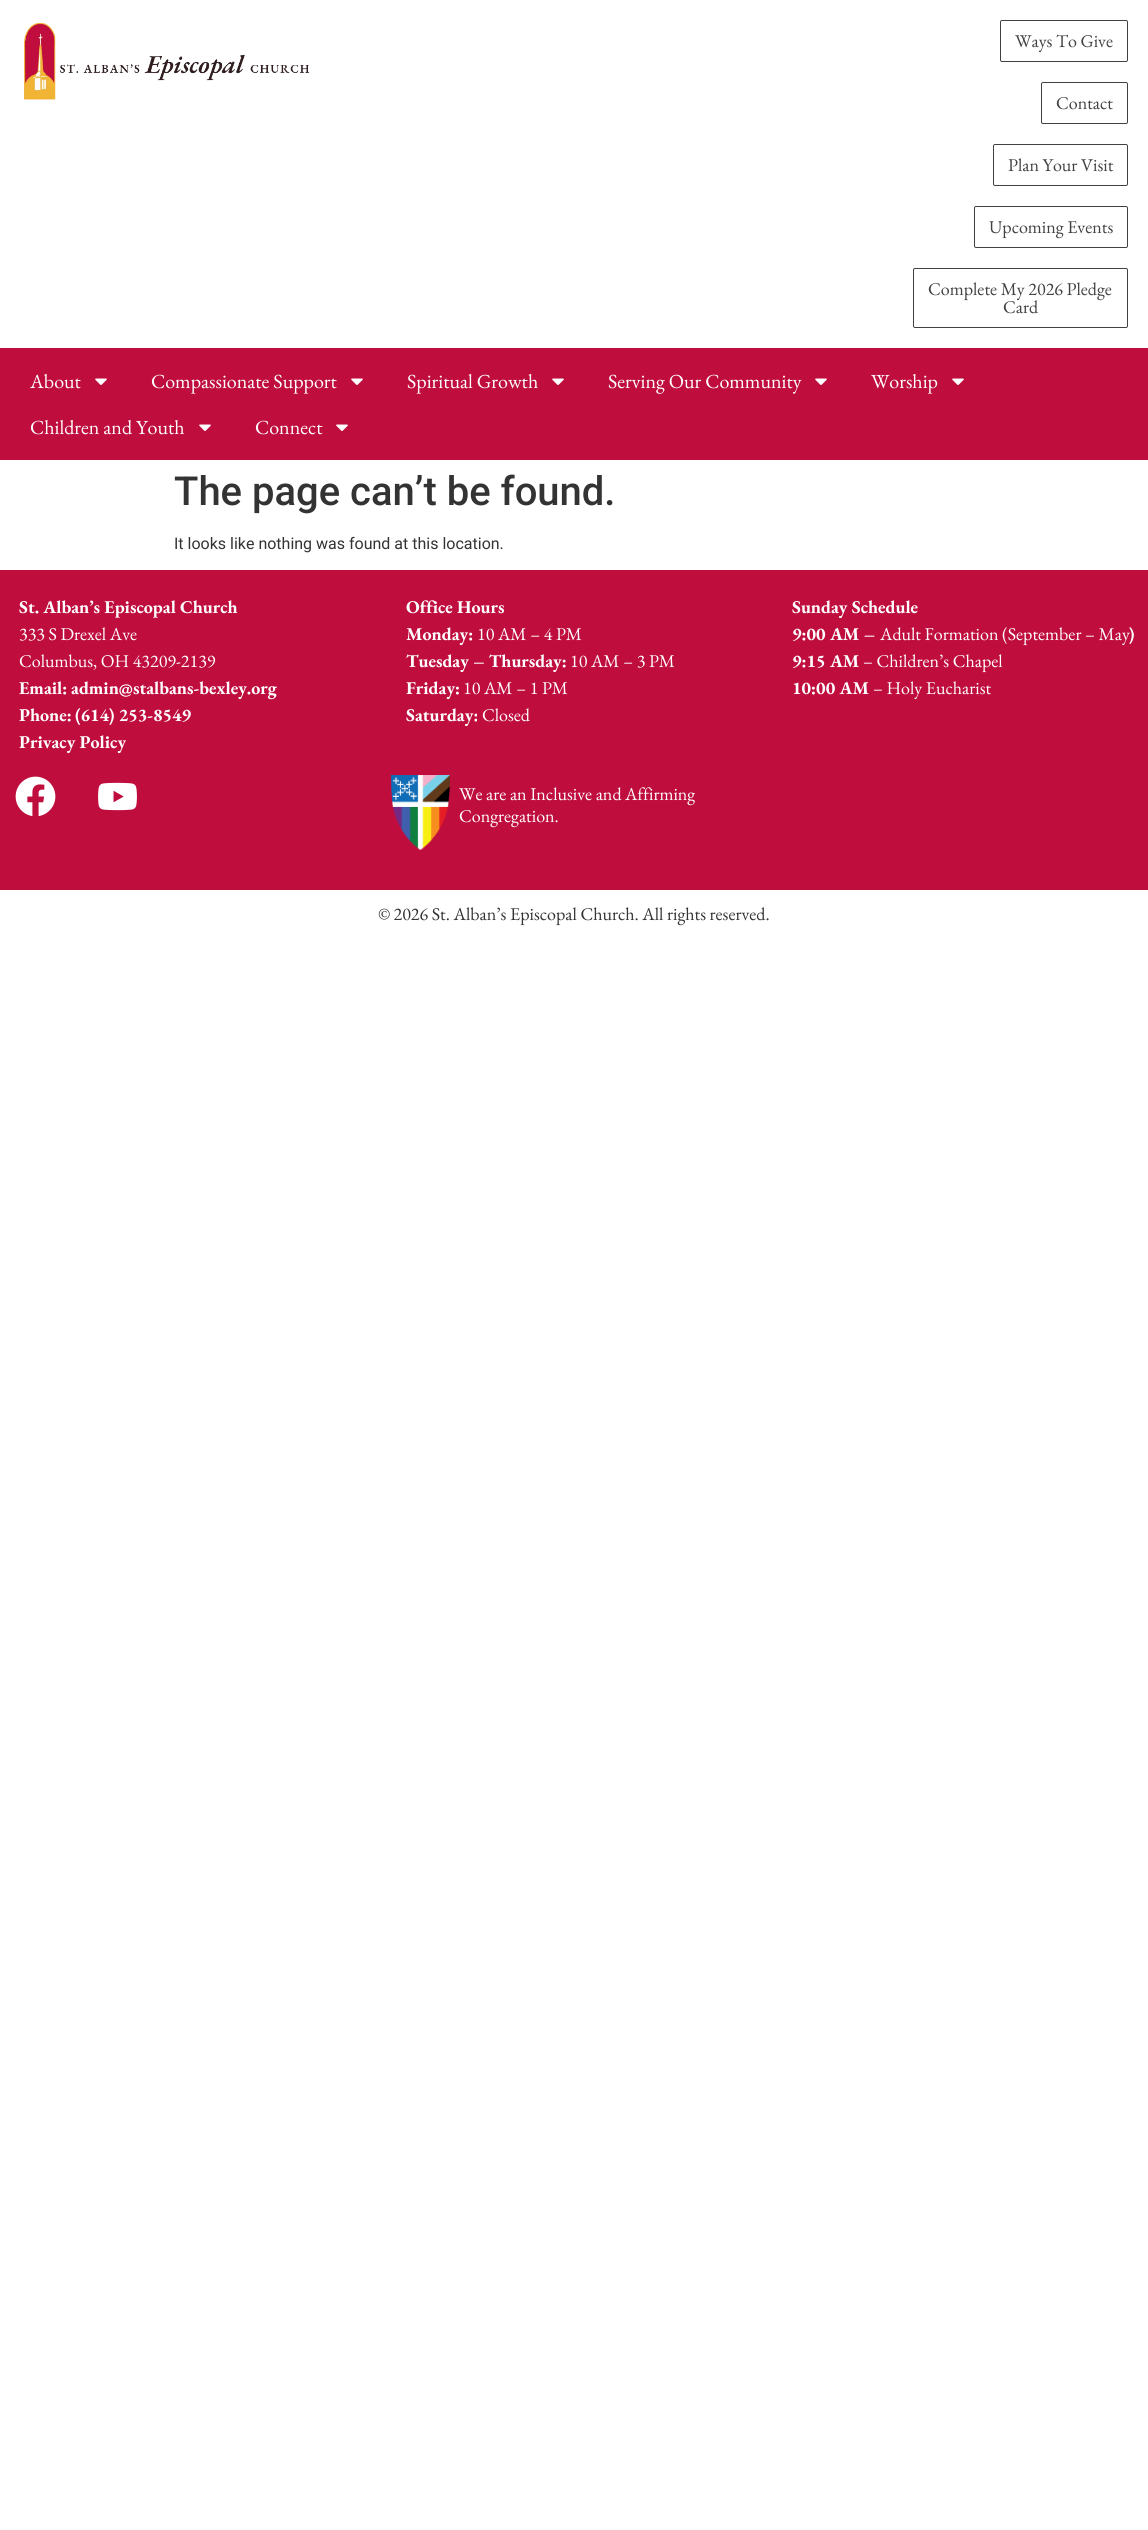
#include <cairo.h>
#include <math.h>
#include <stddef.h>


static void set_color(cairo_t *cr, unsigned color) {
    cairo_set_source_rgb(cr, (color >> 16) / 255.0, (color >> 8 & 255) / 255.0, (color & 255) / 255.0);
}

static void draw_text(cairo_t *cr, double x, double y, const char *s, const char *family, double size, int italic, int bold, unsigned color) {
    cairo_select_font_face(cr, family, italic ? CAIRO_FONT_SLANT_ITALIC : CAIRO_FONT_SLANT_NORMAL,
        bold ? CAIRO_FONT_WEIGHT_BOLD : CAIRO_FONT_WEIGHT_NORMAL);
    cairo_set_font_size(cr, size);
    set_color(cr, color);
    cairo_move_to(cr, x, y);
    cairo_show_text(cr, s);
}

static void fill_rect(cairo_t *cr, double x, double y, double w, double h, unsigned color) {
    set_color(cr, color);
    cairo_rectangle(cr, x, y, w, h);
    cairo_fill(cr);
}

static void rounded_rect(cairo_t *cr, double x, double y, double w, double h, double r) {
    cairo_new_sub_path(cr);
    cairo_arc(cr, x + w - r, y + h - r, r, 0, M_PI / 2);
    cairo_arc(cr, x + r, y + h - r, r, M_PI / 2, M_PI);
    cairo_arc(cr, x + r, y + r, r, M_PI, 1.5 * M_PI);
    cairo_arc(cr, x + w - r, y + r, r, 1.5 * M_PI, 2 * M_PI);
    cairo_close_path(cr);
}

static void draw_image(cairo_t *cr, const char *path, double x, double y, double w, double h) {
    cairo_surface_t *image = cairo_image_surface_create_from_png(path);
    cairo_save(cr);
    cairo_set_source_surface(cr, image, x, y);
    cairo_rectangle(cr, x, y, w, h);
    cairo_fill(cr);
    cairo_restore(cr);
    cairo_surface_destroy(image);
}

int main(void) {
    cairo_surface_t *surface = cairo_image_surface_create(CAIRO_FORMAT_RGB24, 1148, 2530);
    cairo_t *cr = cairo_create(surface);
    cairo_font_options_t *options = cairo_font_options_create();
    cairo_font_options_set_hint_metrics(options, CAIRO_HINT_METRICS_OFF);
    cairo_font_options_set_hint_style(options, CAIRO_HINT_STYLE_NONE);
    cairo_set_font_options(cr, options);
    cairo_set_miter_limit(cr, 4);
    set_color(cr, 0xFFFFFF);
    cairo_paint(cr);
    draw_image(cr, "assets/img1.png", 24, 23, 286, 77);
    rounded_rect(cr, 1000.5, 20.5, 127, 41, 1.5);
    set_color(cr, 0x414142);
    cairo_set_line_width(cr, 1);
    cairo_stroke(cr);
    draw_text(cr, 1015, 47, "Ways To Give", "EB Garamond", 18, 0, 0, 0x414142);
    rounded_rect(cr, 1041.5, 82.5, 86, 41, 1.5);
    cairo_stroke(cr);
    draw_text(cr, 1056, 109, "Contact", "EB Garamond", 18, 0, 0, 0x414142);
    rounded_rect(cr, 993.5, 144.5, 134, 41, 1.5);
    cairo_stroke(cr);
    draw_text(cr, 1008, 171, "Plan Your Visit", "EB Garamond", 18, 0, 0, 0x414142);
    rounded_rect(cr, 974.5, 206.5, 153, 41, 1.5);
    cairo_stroke(cr);
    draw_text(cr, 989, 233, "Upcoming Events", "EB Garamond", 18, 0, 0, 0x414142);
    rounded_rect(cr, 913.5, 268.5, 214, 59, 1.5);
    cairo_stroke(cr);
    draw_text(cr, 928, 295, "Complete My 2026 Pledge", "EB Garamond", 18, 0, 0, 0x414142);
    draw_text(cr, 1003, 313, "Card", "EB Garamond", 18, 0, 0, 0x414142);
    fill_rect(cr, 0, 348, 1148, 112, 0xBF0D3E);
    draw_text(cr, 30, 388, "About", "EB Garamond", 20, 0, 0, 0xFFFFFF);
    draw_image(cr, "assets/img2.png", 95, 378, 12, 7);
    draw_text(cr, 151, 388, "Compassionate Support", "EB Garamond", 20, 0, 0, 0xFFFFFF);
    draw_image(cr, "assets/img2.png", 351, 378, 12, 7);
    draw_text(cr, 407, 388, "Spiritual Growth", "EB Garamond", 20, 0, 0, 0xFFFFFF);
    draw_image(cr, "assets/img2.png", 552, 378, 12, 7);
    draw_text(cr, 608, 388, "Serving Our Community", "EB Garamond", 20, 0, 0, 0xFFFFFF);
    draw_image(cr, "assets/img2.png", 815, 378, 12, 7);
    draw_text(cr, 871, 388, "Worship", "EB Garamond", 20, 0, 0, 0xFFFFFF);
    draw_image(cr, "assets/img2.png", 952, 378, 12, 7);
    draw_text(cr, 30, 434, "Children and Youth", "EB Garamond", 20, 0, 0, 0xFFFFFF);
    draw_image(cr, "assets/img2.png", 199, 424, 12, 7);
    draw_text(cr, 255, 434, "Connect", "EB Garamond", 20, 0, 0, 0xFFFFFF);
    draw_image(cr, "assets/img2.png", 336, 424, 12, 7);
    draw_text(cr, 174, 505, "The page can’t be found.", "Roboto Medium", 40, 0, 0, 0x333333);
    draw_text(cr, 174, 549, "It looks like nothing was found at this location.", "Roboto", 16, 0, 0, 0x333333);
    fill_rect(cr, 0, 570, 1148, 320, 0xBF0D3E);
    draw_text(cr, 19, 613, "St. Alban’s Episcopal Church", "EB Garamond", 18, 0, 1, 0xFFFFFF);
    draw_text(cr, 19, 640, "333 S Drexel Ave", "EB Garamond", 18, 0, 0, 0xFFFFFF);
    draw_text(cr, 19, 667, "Columbus, OH 43209-2139", "EB Garamond", 18, 0, 0, 0xFFFFFF);
    draw_text(cr, 19, 694, "Email:", "EB Garamond", 18, 0, 1, 0xFFFFFF);
    draw_text(cr, 71, 694, "admin@stalbans-bexley.org", "EB Garamond", 18, 0, 1, 0xFFFFFF);
    draw_text(cr, 19, 721, "Phone:", "EB Garamond", 18, 0, 1, 0xFFFFFF);
    draw_text(cr, 75, 721, "(614) 253-8549", "EB Garamond", 18, 0, 1, 0xFFFFFF);
    draw_text(cr, 19, 748, "Privacy Policy", "EB Garamond", 18, 0, 1, 0xFFFFFF);
    draw_text(cr, 406, 613, "Office Hours", "EB Garamond", 18, 0, 1, 0xFFFFFF);
    draw_text(cr, 406, 640, "Monday:", "EB Garamond", 18, 0, 1, 0xFFFFFF);
    draw_text(cr, 477, 640, "10 AM – 4 PM", "EB Garamond", 18, 0, 0, 0xFFFFFF);
    draw_text(cr, 406, 667, "Tuesday – Thursday:", "EB Garamond", 18, 0, 1, 0xFFFFFF);
    draw_text(cr, 570, 667, "10 AM – 3 PM", "EB Garamond", 18, 0, 0, 0xFFFFFF);
    draw_text(cr, 406, 694, "Friday:", "EB Garamond", 18, 0, 1, 0xFFFFFF);
    draw_text(cr, 463, 694, "10 AM – 1 PM", "EB Garamond", 18, 0, 0, 0xFFFFFF);
    draw_text(cr, 406, 721, "Saturday:", "EB Garamond", 18, 0, 1, 0xFFFFFF);
    draw_text(cr, 482, 721, "Closed", "EB Garamond", 18, 0, 0, 0xFFFFFF);
    draw_text(cr, 792, 613, "Sunday Schedule", "EB Garamond", 18, 0, 1, 0xFFFFFF);
    draw_text(cr, 792, 640, "9:00 AM –", "EB Garamond", 18, 0, 1, 0xFFFFFF);
    draw_text(cr, 880, 640, "Adult Formation (September – May", "EB Garamond", 18, 0, 0, 0xFFFFFF);
    draw_text(cr, 1129, 640, ")", "EB Garamond", 18, 0, 1, 0xFFFFFF);
    draw_text(cr, 792, 667, "9:15 AM", "EB Garamond", 18, 0, 1, 0xFFFFFF);
    draw_text(cr, 863, 667, "– Children’s Chapel", "EB Garamond", 18, 0, 0, 0xFFFFFF);
    draw_text(cr, 792, 694, "10:00 AM", "EB Garamond", 18, 0, 1, 0xFFFFFF);
    draw_text(cr, 873, 694, "– Holy Eucharist", "EB Garamond", 18, 0, 0, 0xFFFFFF);
    draw_image(cr, "assets/img3.png", 15, 776, 41, 41);
    draw_image(cr, "assets/img4.png", 98, 782, 39, 29);
    draw_image(cr, "assets/img5.png", 391, 775, 59, 75);
    draw_text(cr, 459, 800, "We are an Inclusive and Affirming", "EB Garamond", 18, 0, 0, 0xFFFFFF);
    draw_text(cr, 459, 822, "Congregation.", "EB Garamond", 18, 0, 0, 0xFFFFFF);
    draw_text(cr, 378, 920, "© 2026 St. Alban’s Episcopal Church. All rights reserved.", "EB Garamond", 18, 0, 0, 0x333333);
    cairo_surface_write_to_png(surface, "output.png");
    cairo_font_options_destroy(options);
    cairo_destroy(cr);
    cairo_surface_destroy(surface);
    return 0;
}
